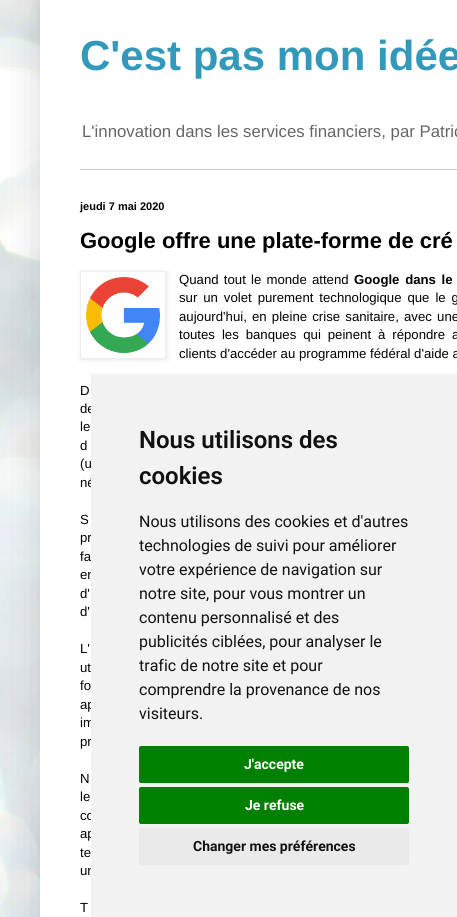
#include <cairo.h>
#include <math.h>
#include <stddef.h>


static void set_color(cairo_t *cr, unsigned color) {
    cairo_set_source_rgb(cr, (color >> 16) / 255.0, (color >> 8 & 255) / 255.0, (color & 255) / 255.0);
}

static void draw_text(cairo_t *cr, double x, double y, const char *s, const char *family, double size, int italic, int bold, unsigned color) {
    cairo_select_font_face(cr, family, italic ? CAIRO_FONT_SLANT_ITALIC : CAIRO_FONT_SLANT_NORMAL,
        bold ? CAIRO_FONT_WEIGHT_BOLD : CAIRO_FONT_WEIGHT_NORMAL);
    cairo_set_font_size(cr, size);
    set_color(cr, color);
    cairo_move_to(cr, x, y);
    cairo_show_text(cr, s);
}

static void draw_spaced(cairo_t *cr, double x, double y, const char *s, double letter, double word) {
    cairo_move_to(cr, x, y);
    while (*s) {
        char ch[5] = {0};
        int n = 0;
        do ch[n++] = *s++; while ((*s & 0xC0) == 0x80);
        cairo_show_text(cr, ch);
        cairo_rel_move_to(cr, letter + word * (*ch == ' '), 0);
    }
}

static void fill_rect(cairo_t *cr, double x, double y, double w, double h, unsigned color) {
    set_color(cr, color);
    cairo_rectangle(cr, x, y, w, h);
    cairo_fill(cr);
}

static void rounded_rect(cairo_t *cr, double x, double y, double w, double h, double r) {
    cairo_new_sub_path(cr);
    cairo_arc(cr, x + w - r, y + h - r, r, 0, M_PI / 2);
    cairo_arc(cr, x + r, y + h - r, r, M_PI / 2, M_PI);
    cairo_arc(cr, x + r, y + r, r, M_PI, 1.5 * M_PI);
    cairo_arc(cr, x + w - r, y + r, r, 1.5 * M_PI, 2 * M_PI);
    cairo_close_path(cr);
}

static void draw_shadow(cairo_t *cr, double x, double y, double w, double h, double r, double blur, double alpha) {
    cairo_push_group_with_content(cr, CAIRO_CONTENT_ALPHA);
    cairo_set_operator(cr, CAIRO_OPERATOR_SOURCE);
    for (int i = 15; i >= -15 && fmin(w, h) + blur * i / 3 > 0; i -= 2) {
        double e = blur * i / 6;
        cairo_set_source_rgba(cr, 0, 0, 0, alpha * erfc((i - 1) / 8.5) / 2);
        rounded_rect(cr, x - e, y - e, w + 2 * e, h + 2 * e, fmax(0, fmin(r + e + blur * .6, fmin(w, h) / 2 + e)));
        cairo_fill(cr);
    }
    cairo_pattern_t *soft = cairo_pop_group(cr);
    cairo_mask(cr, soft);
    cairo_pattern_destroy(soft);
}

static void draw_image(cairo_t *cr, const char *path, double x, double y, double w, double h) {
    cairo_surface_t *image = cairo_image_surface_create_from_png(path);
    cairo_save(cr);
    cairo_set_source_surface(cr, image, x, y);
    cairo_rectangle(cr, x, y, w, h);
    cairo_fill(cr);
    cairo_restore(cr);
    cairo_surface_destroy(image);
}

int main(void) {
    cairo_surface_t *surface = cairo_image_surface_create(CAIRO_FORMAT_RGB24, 457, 917);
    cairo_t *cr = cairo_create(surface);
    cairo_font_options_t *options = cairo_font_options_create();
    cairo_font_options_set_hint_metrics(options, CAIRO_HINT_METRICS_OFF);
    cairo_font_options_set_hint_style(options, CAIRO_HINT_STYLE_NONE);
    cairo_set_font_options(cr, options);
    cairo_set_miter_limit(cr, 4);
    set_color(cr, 0xFFFFFF);
    cairo_paint(cr);
    draw_image(cr, "assets/img1.png", 0, 0, 40, 917);
    set_color(cr, 0x000000);
    draw_shadow(cr, 40, 0, 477, 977, 0, 20, 0.15);
    fill_rect(cr, 40, 0, 417, 917, 0xFFFFFF);
    draw_text(cr, 80, 70, "C'est pas mon idée", "Liberation Sans", 42, 0, 1, 0x3299BB);
    draw_text(cr, 82, 137, "L'innovation dans les services financiers, par Patric", "Liberation Sans", 16.8, 0, 0, 0x666666);
    fill_rect(cr, 80, 169, 377, 1, 0xCCCCCC);
    draw_text(cr, 80, 210, "jeudi 7 mai 2020", "Liberation Sans", 11, 0, 1, 0x000000);
    draw_text(cr, 80, 248, "Google offre une plate-forme de cré", "Liberation Sans", 22, 0, 1, 0x000000);
    cairo_save(cr);
    cairo_set_fill_rule(cr, CAIRO_FILL_RULE_EVEN_ODD);
    cairo_new_path(cr);
    cairo_move_to(cr, 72, 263);
    cairo_line_to(cr, 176, 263);
    cairo_line_to(cr, 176, 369);
    cairo_line_to(cr, 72, 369);
    cairo_close_path(cr);
    cairo_move_to(cr, 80, 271);
    cairo_line_to(cr, 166, 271);
    cairo_line_to(cr, 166, 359);
    cairo_line_to(cr, 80, 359);
    cairo_close_path(cr);
    cairo_clip(cr);
    set_color(cr, 0x000000);
    draw_shadow(cr, 81, 272, 86, 88, 0, 2.5, 0.1);
    cairo_restore(cr);
    cairo_rectangle(cr, 80.5, 271.5, 85, 87);
    set_color(cr, 0xEEEEEE);
    cairo_set_line_width(cr, 1);
    cairo_stroke(cr);
    draw_image(cr, "assets/img2.png", 86, 277, 74, 76);
    cairo_select_font_face(cr, "Liberation Sans", CAIRO_FONT_SLANT_NORMAL, CAIRO_FONT_WEIGHT_NORMAL);
    cairo_set_font_size(cr, 13.2);
    set_color(cr, 0x000000);
    draw_spaced(cr, 179, 284, "Quand tout le monde attend", 0, 1.5);
    cairo_select_font_face(cr, "Liberation Sans", CAIRO_FONT_SLANT_NORMAL, CAIRO_FONT_WEIGHT_BOLD);
    draw_spaced(cr, 354, 284, "Google dans le", 0, 2);
    cairo_select_font_face(cr, "Liberation Sans", CAIRO_FONT_SLANT_NORMAL, CAIRO_FONT_WEIGHT_NORMAL);
    draw_spaced(cr, 179, 302, "sur un volet purement technologique que le g", 0, 2.25);
    draw_spaced(cr, 179, 321, "aujourd'hui, en pleine crise sanitaire, avec une", 0, 1.5);
    draw_spaced(cr, 179, 339, "toutes les banques qui peinent à répondre a", 0, 3.25);
    draw_text(cr, 179, 358, "clients d'accéder au programme fédéral d'aide a", "Liberation Sans", 13.2, 0, 0, 0x000000);
    draw_text(cr, 80, 395, "D", "Liberation Sans", 13.2, 0, 0, 0x000000);
    draw_text(cr, 80, 413, "de", "Liberation Sans", 13.2, 0, 0, 0x000000);
    draw_spaced(cr, 80, 431, "le", 0, 2);
    draw_text(cr, 80, 450, "d", "Liberation Sans", 13.2, 0, 0, 0x000000);
    draw_spaced(cr, 80, 468, "(u", 0, 4);
    draw_text(cr, 80, 487, "né", "Liberation Sans", 13.2, 0, 0, 0x000000);
    draw_spaced(cr, 80, 524, "S", 0, 5);
    draw_spaced(cr, 80, 542, "pr", 0, 3);
    draw_spaced(cr, 80, 561, "fa", 0, 1);
    draw_text(cr, 80, 579, "en", "Liberation Sans", 13.2, 0, 0, 0x000000);
    draw_spaced(cr, 80, 598, "d'", 0, 3);
    draw_text(cr, 80, 616, "d'", "Liberation Sans", 13.2, 0, 0, 0x000000);
    draw_spaced(cr, 80, 653, "L'", 0, 5);
    draw_spaced(cr, 80, 672, "ut", 0, 1);
    draw_spaced(cr, 80, 690, "fo", 0, 5);
    draw_spaced(cr, 80, 709, "ap", 0, 2);
    draw_spaced(cr, 80, 727, "im", 0, 5);
    draw_text(cr, 80, 746, "pr", "Liberation Sans", 13.2, 0, 0, 0x000000);
    draw_text(cr, 80, 783, "N", "Liberation Sans", 13.2, 0, 0, 0x000000);
    draw_spaced(cr, 80, 801, "le", 0, 4);
    draw_spaced(cr, 80, 820, "co", 0, 2.25);
    draw_spaced(cr, 80, 838, "ap", 0, 1);
    draw_spaced(cr, 80, 857, "te", 0, 1);
    draw_text(cr, 80, 875, "un", "Liberation Sans", 13.2, 0, 0, 0x000000);
    draw_spaced(cr, 80, 912, "T", 0, 3.25);
    fill_rect(cr, 91, 374, 366, 543, 0xF2F2F2);
    draw_text(cr, 139, 448, "Nous utilisons des", "Roboto SemiBold", 24, 0, 0, 0x111111);
    draw_text(cr, 139, 484, "cookies", "Roboto SemiBold", 24, 0, 0, 0x111111);
    draw_text(cr, 139, 527, "Nous utilisons des cookies et d'autres", "Roboto", 16, 0, 0, 0x111111);
    draw_text(cr, 139, 551, "technologies de suivi pour améliorer", "Roboto", 16, 0, 0, 0x111111);
    draw_text(cr, 139, 575, "votre expérience de navigation sur", "Roboto", 16, 0, 0, 0x111111);
    draw_text(cr, 139, 599, "notre site, pour vous montrer un", "Roboto", 16, 0, 0, 0x111111);
    draw_text(cr, 139, 623, "contenu personnalisé et des", "Roboto", 16, 0, 0, 0x111111);
    draw_text(cr, 139, 647, "publicités ciblées, pour analyser le", "Roboto", 16, 0, 0, 0x111111);
    draw_text(cr, 139, 671, "trafic de notre site et pour", "Roboto", 16, 0, 0, 0x111111);
    draw_text(cr, 139, 695, "comprendre la provenance de nos", "Roboto", 16, 0, 0, 0x111111);
    draw_text(cr, 139, 719, "visiteurs.", "Roboto", 16, 0, 0, 0x111111);
    set_color(cr, 0x008000);
    rounded_rect(cr, 139, 746, 270, 37, 2);
    cairo_fill(cr);
    draw_text(cr, 244, 769, "J'accepte", "Roboto", 14, 0, 1, 0xFFFFFF);
    set_color(cr, 0x008000);
    rounded_rect(cr, 139, 787, 270, 37, 2);
    cairo_fill(cr);
    draw_text(cr, 245, 810, "Je refuse", "Roboto", 14, 0, 1, 0xFFFFFF);
    set_color(cr, 0xEAEAEA);
    rounded_rect(cr, 139, 828, 270, 37, 2);
    cairo_fill(cr);
    draw_text(cr, 193, 851, "Changer mes préférences", "Roboto", 14, 0, 1, 0x111111);
    cairo_surface_write_to_png(surface, "output.png");
    cairo_font_options_destroy(options);
    cairo_destroy(cr);
    cairo_surface_destroy(surface);
    return 0;
}
